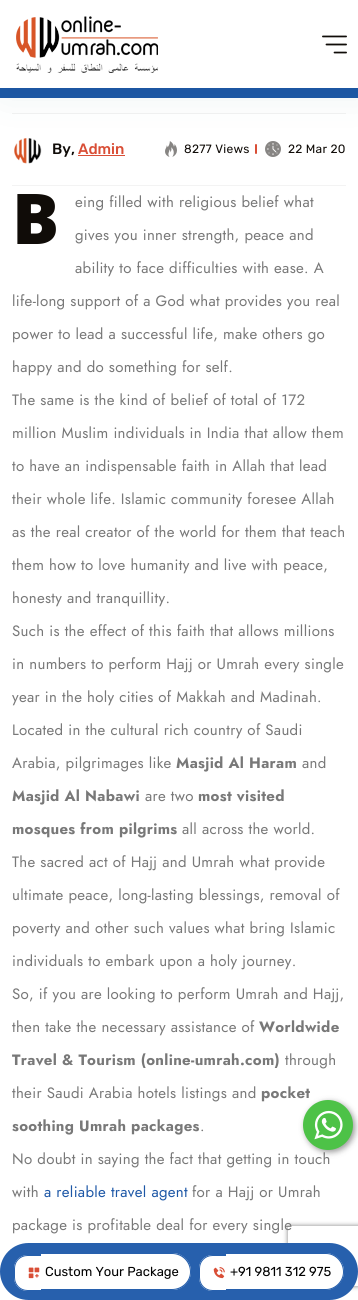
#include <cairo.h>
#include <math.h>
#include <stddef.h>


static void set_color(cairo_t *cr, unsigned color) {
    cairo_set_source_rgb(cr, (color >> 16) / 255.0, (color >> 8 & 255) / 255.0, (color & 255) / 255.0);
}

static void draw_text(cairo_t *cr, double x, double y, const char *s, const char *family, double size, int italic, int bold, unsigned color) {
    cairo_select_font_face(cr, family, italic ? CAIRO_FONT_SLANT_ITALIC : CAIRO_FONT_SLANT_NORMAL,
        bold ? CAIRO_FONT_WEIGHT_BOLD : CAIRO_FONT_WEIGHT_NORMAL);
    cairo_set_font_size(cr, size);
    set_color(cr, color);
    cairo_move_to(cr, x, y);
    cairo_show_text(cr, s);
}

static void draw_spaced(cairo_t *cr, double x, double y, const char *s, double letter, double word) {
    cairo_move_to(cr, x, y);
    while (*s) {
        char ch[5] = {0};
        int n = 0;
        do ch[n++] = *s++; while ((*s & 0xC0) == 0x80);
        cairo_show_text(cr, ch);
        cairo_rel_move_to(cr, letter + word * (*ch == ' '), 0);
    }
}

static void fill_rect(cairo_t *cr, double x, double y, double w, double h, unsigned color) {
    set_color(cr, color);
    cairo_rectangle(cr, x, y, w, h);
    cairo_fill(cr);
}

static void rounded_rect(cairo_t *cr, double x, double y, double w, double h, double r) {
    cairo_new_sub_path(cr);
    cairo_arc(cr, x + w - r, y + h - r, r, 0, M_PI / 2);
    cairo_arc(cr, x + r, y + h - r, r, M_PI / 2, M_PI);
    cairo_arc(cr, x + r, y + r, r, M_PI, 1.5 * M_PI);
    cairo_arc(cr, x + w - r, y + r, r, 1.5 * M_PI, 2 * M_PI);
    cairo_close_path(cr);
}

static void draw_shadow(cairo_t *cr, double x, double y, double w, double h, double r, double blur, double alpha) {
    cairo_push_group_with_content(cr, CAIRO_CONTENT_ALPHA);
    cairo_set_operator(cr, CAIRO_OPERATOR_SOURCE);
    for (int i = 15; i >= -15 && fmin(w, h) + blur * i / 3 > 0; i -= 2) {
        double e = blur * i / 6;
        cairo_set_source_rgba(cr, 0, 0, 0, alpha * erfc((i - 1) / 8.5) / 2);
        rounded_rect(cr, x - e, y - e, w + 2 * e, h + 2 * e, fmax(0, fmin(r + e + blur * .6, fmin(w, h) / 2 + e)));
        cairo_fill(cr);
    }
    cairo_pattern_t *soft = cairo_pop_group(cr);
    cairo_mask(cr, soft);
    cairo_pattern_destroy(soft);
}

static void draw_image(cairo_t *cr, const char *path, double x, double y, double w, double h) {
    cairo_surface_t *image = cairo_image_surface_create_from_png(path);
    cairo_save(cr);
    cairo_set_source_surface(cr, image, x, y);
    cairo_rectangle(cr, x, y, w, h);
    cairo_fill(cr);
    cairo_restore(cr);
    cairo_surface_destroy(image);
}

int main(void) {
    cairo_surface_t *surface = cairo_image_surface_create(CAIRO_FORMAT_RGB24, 358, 1300);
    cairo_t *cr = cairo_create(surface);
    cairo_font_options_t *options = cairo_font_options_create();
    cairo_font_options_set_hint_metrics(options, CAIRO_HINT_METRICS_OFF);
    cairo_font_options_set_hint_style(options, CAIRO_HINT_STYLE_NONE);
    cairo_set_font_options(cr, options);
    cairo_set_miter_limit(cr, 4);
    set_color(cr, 0xFFFFFF);
    cairo_paint(cr);
    fill_rect(cr, 0, 88, 358, 10, 0x1D57A6);
    fill_rect(cr, 12, 113, 334, 1, 0xF3F3F3);
    draw_image(cr, "assets/img3.png", 14, 138, 28, 26);
    draw_image(cr, "assets/img4.png", 165, 141, 12, 16);
    set_color(cr, 0xD94E36);
    rounded_rect(cr, 255, 144, 2, 10, 1);
    cairo_fill(cr);
    draw_image(cr, "assets/img5.png", 265, 141, 16, 16);
    set_color(cr, 0x004858);
    draw_shadow(cr, 5, 3, 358, 88, 0, 20, 0.1);
    fill_rect(cr, 0, 0, 358, 88, 0xFFFFFF);
    draw_image(cr, "assets/img1.png", 16, 16, 142, 57);
    draw_image(cr, "assets/img2.png", 322, 35, 25, 19);
    fill_rect(cr, 12, 185, 334, 1, 0xF3F3F3);
    draw_text(cr, 52, 154, "By,", "Rubik Medium", 15, 0, 0, 0x100C08);
    draw_text(cr, 78, 154, "Admin", "Rubik Medium", 15, 0, 0, 0xD94E36);
    fill_rect(cr, 78, 155, 47, 1, 0xD94E36);
    cairo_select_font_face(cr, "Rubik", CAIRO_FONT_SLANT_NORMAL, CAIRO_FONT_WEIGHT_NORMAL);
    cairo_set_font_size(cr, 12);
    set_color(cr, 0x100C08);
    draw_spaced(cr, 184, 153, "8277 Views", 0.25, 0);
    draw_spaced(cr, 288, 153, "22 Mar 20", 0.25, 0);
    cairo_select_font_face(cr, "Noto Sans Black", CAIRO_FONT_SLANT_NORMAL, CAIRO_FONT_WEIGHT_NORMAL);
    cairo_set_font_size(cr, 70);
    draw_spaced(cr, 12, 244, "B", 0.32, 0);
    cairo_select_font_face(cr, "Jost", CAIRO_FONT_SLANT_NORMAL, CAIRO_FONT_WEIGHT_NORMAL);
    cairo_set_font_size(cr, 15);
    set_color(cr, 0x787878);
    draw_spaced(cr, 75, 207, "eing filled with religious belief what", 0.32, 0);
    draw_spaced(cr, 75, 240, "gives you inner strength, peace and", 0.32, 0);
    draw_spaced(cr, 75, 273, "ability to face difficulties with ease. A", 0.32, 0);
    draw_spaced(cr, 12, 306, "life-long support of a God what provides you real", 0.32, 0);
    draw_spaced(cr, 12, 339, "power to lead a successful life, make others go", 0.32, 0);
    draw_spaced(cr, 12, 372, "happy and do something for self.", 0.32, 0);
    draw_spaced(cr, 12, 405, "The same is the kind of belief of total of 172", 0.32, 0);
    draw_spaced(cr, 12, 438, "million Muslim individuals in India that allow them", 0.32, 0);
    draw_spaced(cr, 12, 471, "to have an indispensable faith in Allah that lead", 0.32, 0);
    draw_spaced(cr, 12, 504, "their whole life. Islamic community foresee Allah", 0.32, 0);
    draw_spaced(cr, 12, 537, "as the real creator of the world for them that teach", 0.32, 0);
    draw_spaced(cr, 12, 570, "them how to love humanity and live with peace,", 0.32, 0);
    draw_spaced(cr, 12, 603, "honesty and tranquillity.", 0.32, 0);
    draw_spaced(cr, 12, 636, "Such is the effect of this faith that allows millions", 0.32, 0);
    draw_spaced(cr, 12, 669, "in numbers to perform Hajj or Umrah every single", 0.32, 0);
    draw_spaced(cr, 12, 702, "year in the holy cities of Makkah and Madinah.", 0.32, 0);
    draw_spaced(cr, 12, 735, "Located in the cultural rich country of Saudi", 0.32, 0);
    draw_spaced(cr, 12, 768, "Arabia, pilgrimages like", 0.32, 0);
    cairo_select_font_face(cr, "Jost", CAIRO_FONT_SLANT_NORMAL, CAIRO_FONT_WEIGHT_BOLD);
    draw_spaced(cr, 176, 768, "Masjid Al Haram", 0.32, 0);
    cairo_select_font_face(cr, "Jost", CAIRO_FONT_SLANT_NORMAL, CAIRO_FONT_WEIGHT_NORMAL);
    draw_spaced(cr, 302, 768, "and", 0.32, 0);
    cairo_select_font_face(cr, "Jost", CAIRO_FONT_SLANT_NORMAL, CAIRO_FONT_WEIGHT_BOLD);
    draw_spaced(cr, 12, 801, "Masjid Al Nabawi", 0.32, 0);
    cairo_select_font_face(cr, "Jost", CAIRO_FONT_SLANT_NORMAL, CAIRO_FONT_WEIGHT_NORMAL);
    draw_spaced(cr, 145, 801, "are two", 0.32, 0);
    cairo_select_font_face(cr, "Jost", CAIRO_FONT_SLANT_NORMAL, CAIRO_FONT_WEIGHT_BOLD);
    draw_spaced(cr, 198, 801, "most visited", 0.32, 0);
    draw_spaced(cr, 12, 834, "mosques from pilgrims", 0.32, 0);
    cairo_select_font_face(cr, "Jost", CAIRO_FONT_SLANT_NORMAL, CAIRO_FONT_WEIGHT_NORMAL);
    draw_spaced(cr, 182, 834, "all across the world.", 0.32, 0);
    draw_spaced(cr, 12, 867, "The sacred act of Hajj and Umrah what provide", 0.32, 0);
    draw_spaced(cr, 12, 900, "ultimate peace, long-lasting blessings, removal of", 0.32, 0);
    draw_spaced(cr, 12, 933, "poverty and other such values what bring Islamic", 0.32, 0);
    draw_spaced(cr, 12, 966, "individuals to embark upon a holy journey.", 0.32, 0);
    draw_spaced(cr, 12, 999, "So, if you are looking to perform Umrah and Hajj,", 0.32, 0);
    draw_spaced(cr, 12, 1032, "then take the necessary assistance of", 0.32, 0);
    cairo_select_font_face(cr, "Jost", CAIRO_FONT_SLANT_NORMAL, CAIRO_FONT_WEIGHT_BOLD);
    draw_spaced(cr, 259, 1032, "Worldwide", 0.32, 0);
    draw_spaced(cr, 12, 1065, "Travel & Tourism (online-umrah.com)", 0.32, 0);
    cairo_select_font_face(cr, "Jost", CAIRO_FONT_SLANT_NORMAL, CAIRO_FONT_WEIGHT_NORMAL);
    draw_spaced(cr, 285, 1065, "through", 0.32, 0);
    draw_spaced(cr, 12, 1098, "their Saudi Arabia hotels listings and", 0.32, 0);
    cairo_select_font_face(cr, "Jost", CAIRO_FONT_SLANT_NORMAL, CAIRO_FONT_WEIGHT_BOLD);
    draw_spaced(cr, 261, 1098, "pocket", 0.32, 0);
    draw_spaced(cr, 12, 1131, "soothing Umrah packages", 0.32, 0);
    cairo_select_font_face(cr, "Jost", CAIRO_FONT_SLANT_NORMAL, CAIRO_FONT_WEIGHT_NORMAL);
    draw_spaced(cr, 200, 1131, ".", 0.32, 0);
    draw_spaced(cr, 12, 1164, "No doubt in saying the fact that getting in touch", 0.32, 0);
    draw_spaced(cr, 12, 1197, "with", 0.32, 0);
    set_color(cr, 0x1D57A6);
    draw_spaced(cr, 44, 1197, "a reliable travel agent", 0.32, 0);
    set_color(cr, 0x787878);
    draw_spaced(cr, 192, 1197, "for a Hajj or Umrah", 0.32, 0);
    draw_spaced(cr, 12, 1230, "package is profitable deal for every single", 0.32, 0);
    set_color(cr, 0x000000);
    draw_shadow(cr, 305, 1102, 50, 50, 25, 3, 0.4);
    set_color(cr, 0x4DC247);
    cairo_arc(cr, 328, 1125, 25, 0, 2 * M_PI);
    cairo_fill(cr);
    draw_image(cr, "assets/img6.png", 314, 1110, 29, 30);
    cairo_save(cr);
    cairo_set_fill_rule(cr, CAIRO_FILL_RULE_EVEN_ODD);
    cairo_new_path(cr);
    cairo_move_to(cr, 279, 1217);
    cairo_line_to(cr, 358, 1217);
    cairo_line_to(cr, 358, 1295);
    cairo_line_to(cr, 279, 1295);
    cairo_close_path(cr);
    cairo_move_to(cr, 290, 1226);
    cairo_line_to(cr, 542, 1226);
    cairo_curve_to(cr, 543, 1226, 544, 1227, 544, 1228);
    cairo_line_to(cr, 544, 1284);
    cairo_curve_to(cr, 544, 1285, 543, 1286, 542, 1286);
    cairo_line_to(cr, 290, 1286);
    cairo_curve_to(cr, 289, 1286, 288, 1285, 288, 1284);
    cairo_line_to(cr, 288, 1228);
    cairo_curve_to(cr, 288, 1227, 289, 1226, 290, 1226);
    cairo_close_path(cr);
    cairo_clip(cr);
    set_color(cr, 0x808080);
    draw_shadow(cr, 288, 1226, 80, 60, 2, 2.5, 1);
    cairo_restore(cr);
    set_color(cr, 0x2760AD);
    rounded_rect(cr, 0, 1243, 358, 57, 28.5);
    cairo_fill(cr);
    set_color(cr, 0xFFFFFF);
    cairo_new_path(cr);
    cairo_move_to(cr, 27.5, 1255);
    cairo_line_to(cr, 41, 1255);
    cairo_line_to(cr, 41, 1291);
    cairo_line_to(cr, 27.5, 1291);
    cairo_curve_to(cr, 20, 1291, 14, 1285, 14, 1277.5);
    cairo_line_to(cr, 14, 1268.5);
    cairo_curve_to(cr, 14, 1261, 20, 1255, 27.5, 1255);
    cairo_close_path(cr);
    cairo_fill(cr);
    set_color(cr, 0x2760AD);
    cairo_set_fill_rule(cr, CAIRO_FILL_RULE_EVEN_ODD);
    cairo_new_path(cr);
    cairo_move_to(cr, 27.5, 1255);
    cairo_line_to(cr, 41, 1255);
    cairo_line_to(cr, 41, 1291);
    cairo_line_to(cr, 27.5, 1291);
    cairo_curve_to(cr, 20, 1291, 14, 1285, 14, 1277.5);
    cairo_line_to(cr, 14, 1268.5);
    cairo_curve_to(cr, 14, 1261, 20, 1255, 27.5, 1255);
    cairo_close_path(cr);
    cairo_move_to(cr, 27.5, 1256);
    cairo_line_to(cr, 41, 1256);
    cairo_line_to(cr, 41, 1290);
    cairo_line_to(cr, 27.5, 1290);
    cairo_curve_to(cr, 20.5, 1290, 15, 1284.5, 15, 1277.5);
    cairo_line_to(cr, 15, 1268.5);
    cairo_curve_to(cr, 15, 1261.5, 20.5, 1256, 27.5, 1256);
    cairo_close_path(cr);
    cairo_fill(cr);
    set_color(cr, 0xFFFFFF);
    cairo_new_path(cr);
    cairo_move_to(cr, 41, 1253);
    cairo_line_to(cr, 172.5, 1253);
    cairo_curve_to(cr, 182.5, 1253, 191, 1261.5, 191, 1271.5);
    cairo_curve_to(cr, 191, 1281.5, 182.5, 1290, 172.5, 1290);
    cairo_line_to(cr, 41, 1290);
    cairo_close_path(cr);
    cairo_fill(cr);
    set_color(cr, 0x2760AD);
    cairo_new_path(cr);
    cairo_move_to(cr, 41, 1253);
    cairo_line_to(cr, 172, 1253);
    cairo_curve_to(cr, 183, 1253, 191, 1261, 191, 1272);
    cairo_curve_to(cr, 191, 1282, 183, 1290, 172, 1290);
    cairo_line_to(cr, 41, 1290);
    cairo_close_path(cr);
    cairo_move_to(cr, 41, 1254);
    cairo_line_to(cr, 172, 1254);
    cairo_curve_to(cr, 182, 1254, 190, 1262, 190, 1272);
    cairo_curve_to(cr, 190, 1281, 182, 1289, 172, 1289);
    cairo_line_to(cr, 41, 1289);
    cairo_close_path(cr);
    cairo_fill(cr);
    draw_image(cr, "assets/img7.png", 28, 1267, 12, 12);
    draw_text(cr, 45, 1276, "Custom Your Package", "Rubik", 13, 0, 0, 0x000000);
    set_color(cr, 0xFFFFFF);
    cairo_new_path(cr);
    cairo_move_to(cr, 212.5, 1255);
    cairo_line_to(cr, 226, 1255);
    cairo_line_to(cr, 226, 1291);
    cairo_line_to(cr, 212.5, 1291);
    cairo_curve_to(cr, 205, 1291, 199, 1285, 199, 1277.5);
    cairo_line_to(cr, 199, 1268.5);
    cairo_curve_to(cr, 199, 1261, 205, 1255, 212.5, 1255);
    cairo_close_path(cr);
    cairo_fill(cr);
    set_color(cr, 0x2760AD);
    cairo_new_path(cr);
    cairo_move_to(cr, 212.5, 1255);
    cairo_line_to(cr, 226, 1255);
    cairo_line_to(cr, 226, 1291);
    cairo_line_to(cr, 212.5, 1291);
    cairo_curve_to(cr, 205, 1291, 199, 1285, 199, 1277.5);
    cairo_line_to(cr, 199, 1268.5);
    cairo_curve_to(cr, 199, 1261, 205, 1255, 212.5, 1255);
    cairo_close_path(cr);
    cairo_move_to(cr, 212.5, 1256);
    cairo_line_to(cr, 226, 1256);
    cairo_line_to(cr, 226, 1290);
    cairo_line_to(cr, 212.5, 1290);
    cairo_curve_to(cr, 205.5, 1290, 200, 1284.5, 200, 1277.5);
    cairo_line_to(cr, 200, 1268.5);
    cairo_curve_to(cr, 200, 1261.5, 205.5, 1256, 212.5, 1256);
    cairo_close_path(cr);
    cairo_fill(cr);
    set_color(cr, 0xFFFFFF);
    cairo_new_path(cr);
    cairo_move_to(cr, 226, 1253);
    cairo_line_to(cr, 325.5, 1253);
    cairo_curve_to(cr, 335.5, 1253, 344, 1261.5, 344, 1271.5);
    cairo_curve_to(cr, 344, 1281.5, 335.5, 1290, 325.5, 1290);
    cairo_line_to(cr, 226, 1290);
    cairo_close_path(cr);
    cairo_fill(cr);
    set_color(cr, 0x2760AD);
    cairo_new_path(cr);
    cairo_move_to(cr, 226, 1253);
    cairo_line_to(cr, 326, 1253);
    cairo_curve_to(cr, 336, 1253, 344, 1261, 344, 1272);
    cairo_curve_to(cr, 344, 1282, 336, 1290, 326, 1290);
    cairo_line_to(cr, 226, 1290);
    cairo_close_path(cr);
    cairo_move_to(cr, 226, 1254);
    cairo_line_to(cr, 326, 1254);
    cairo_curve_to(cr, 335, 1254, 343, 1262, 343, 1272);
    cairo_curve_to(cr, 343, 1281, 335, 1289, 326, 1289);
    cairo_line_to(cr, 226, 1289);
    cairo_close_path(cr);
    cairo_fill(cr);
    draw_image(cr, "assets/img8.png", 213, 1267, 12, 12);
    draw_text(cr, 230, 1276, "+91 9811 312 975", "Rubik", 13, 0, 0, 0x000000);
    cairo_surface_write_to_png(surface, "output.png");
    cairo_font_options_destroy(options);
    cairo_destroy(cr);
    cairo_surface_destroy(surface);
    return 0;
}
